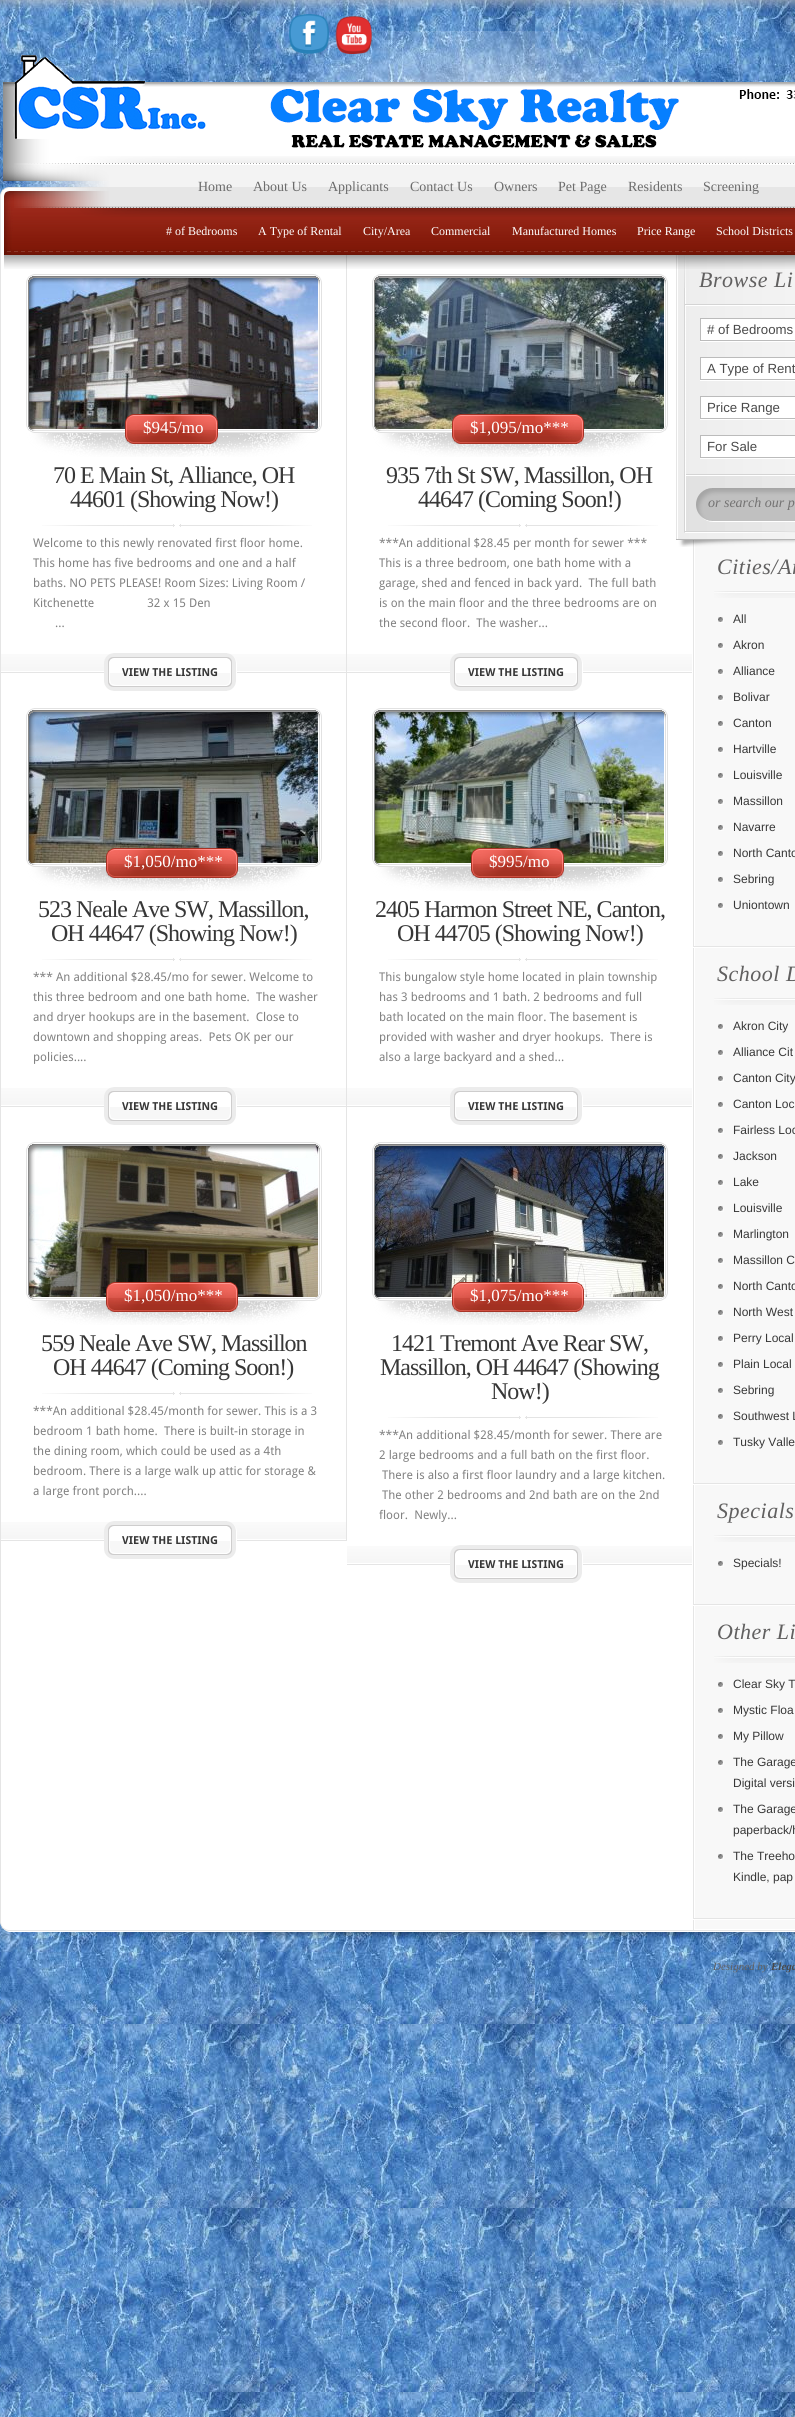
#include <cairo.h>
#include <math.h>
#include <stddef.h>


static void set_color(cairo_t *cr, unsigned color) {
    cairo_set_source_rgb(cr, (color >> 16) / 255.0, (color >> 8 & 255) / 255.0, (color & 255) / 255.0);
}

static void draw_text(cairo_t *cr, double x, double y, const char *s, const char *family, double size, int italic, int bold, unsigned color) {
    cairo_select_font_face(cr, family, italic ? CAIRO_FONT_SLANT_ITALIC : CAIRO_FONT_SLANT_NORMAL,
        bold ? CAIRO_FONT_WEIGHT_BOLD : CAIRO_FONT_WEIGHT_NORMAL);
    cairo_set_font_size(cr, size);
    set_color(cr, color);
    cairo_move_to(cr, x, y);
    cairo_show_text(cr, s);
}

static void draw_spaced(cairo_t *cr, double x, double y, const char *s, double letter, double word) {
    cairo_move_to(cr, x, y);
    while (*s) {
        char ch[5] = {0};
        int n = 0;
        do ch[n++] = *s++; while ((*s & 0xC0) == 0x80);
        cairo_show_text(cr, ch);
        cairo_rel_move_to(cr, letter + word * (*ch == ' '), 0);
    }
}

static void fill_rect(cairo_t *cr, double x, double y, double w, double h, unsigned color) {
    set_color(cr, color);
    cairo_rectangle(cr, x, y, w, h);
    cairo_fill(cr);
}

static void draw_image(cairo_t *cr, const char *path, double x, double y, double w, double h) {
    cairo_surface_t *image = cairo_image_surface_create_from_png(path);
    cairo_save(cr);
    cairo_set_source_surface(cr, image, x, y);
    cairo_rectangle(cr, x, y, w, h);
    cairo_fill(cr);
    cairo_restore(cr);
    cairo_surface_destroy(image);
}

int main(void) {
    cairo_surface_t *surface = cairo_image_surface_create(CAIRO_FORMAT_RGB24, 795, 2417);
    cairo_t *cr = cairo_create(surface);
    cairo_font_options_t *options = cairo_font_options_create();
    cairo_font_options_set_hint_metrics(options, CAIRO_HINT_METRICS_OFF);
    cairo_font_options_set_hint_style(options, CAIRO_HINT_STYLE_NONE);
    cairo_set_font_options(cr, options);
    cairo_set_miter_limit(cr, 4);
    set_color(cr, 0xFFFFFF);
    cairo_paint(cr);
    draw_image(cr, "assets/img1.png", 0, 0, 795, 2417);
    draw_image(cr, "assets/img5.png", 279, 31, 389, 51);
    draw_image(cr, "assets/img2.png", 289, 14, 40, 40);
    draw_image(cr, "assets/img3.png", 335, 16, 38, 38);
    draw_image(cr, "assets/img4.png", 0, 0, 795, 12);
    draw_image(cr, "assets/img6.png", 3, 54, 792, 127);
    draw_image(cr, "assets/img8.png", 0, 187, 109, 68);
    draw_image(cr, "assets/img9.png", 4, 191, 791, 64);
    draw_image(cr, "assets/img7.png", 14, 156, 781, 61);
    draw_text(cr, 198, 191, "Home", "Liberation Serif", 14, 0, 0, 0x6C6C6C);
    draw_text(cr, 253, 191, "About Us", "Liberation Serif", 14, 0, 0, 0x6C6C6C);
    draw_text(cr, 328, 191, "Applicants", "Liberation Serif", 14, 0, 0, 0x6C6C6C);
    draw_text(cr, 410, 191, "Contact Us", "Liberation Serif", 14, 0, 0, 0x6C6C6C);
    draw_text(cr, 494, 191, "Owners", "Liberation Serif", 14, 0, 0, 0x6C6C6C);
    draw_text(cr, 558, 191, "Pet Page", "Liberation Serif", 14, 0, 0, 0x6C6C6C);
    draw_text(cr, 628, 191, "Residents", "Liberation Serif", 14, 0, 0, 0x6C6C6C);
    draw_text(cr, 703, 191, "Screening", "Liberation Serif", 14, 0, 0, 0x6C6C6C);
    draw_text(cr, 166, 235, "# of Bedrooms", "Liberation Serif", 12, 0, 0, 0xFFFFFF);
    draw_text(cr, 258, 235, "A Type of Rental", "Liberation Serif", 12, 0, 0, 0xFFFFFF);
    draw_text(cr, 363, 235, "City/Area", "Liberation Serif", 12, 0, 0, 0xFFFFFF);
    draw_text(cr, 431, 235, "Commercial", "Liberation Serif", 12, 0, 0, 0xFFFFFF);
    draw_text(cr, 512, 235, "Manufactured Homes", "Liberation Serif", 12, 0, 0, 0xFFFFFF);
    draw_text(cr, 637, 235, "Price Range", "Liberation Serif", 12, 0, 0, 0xFFFFFF);
    draw_text(cr, 716, 235, "School Districts", "Liberation Serif", 12, 0, 0, 0xFFFFFF);
    draw_image(cr, "assets/img11.png", 0, 255, 795, 1665);
    fill_rect(cr, 346, 255, 1, 1286, 0xE5E5E5);
    draw_image(cr, "assets/img40.png", 676, 255, 119, 219);
    draw_image(cr, "assets/img41.png", 684, 255, 2, 33);
    draw_image(cr, "assets/img10.png", 4, 255, 791, 14);
    draw_image(cr, "assets/img12.png", 1, 654, 345, 17);
    fill_rect(cr, 1, 672, 691, 1, 0xE5E5E5);
    draw_image(cr, "assets/img14.png", 29, 278, 289, 151);
    draw_image(cr, "assets/img13.png", 26, 274, 296, 183);
    draw_image(cr, "assets/img15.png", 125, 414, 86, 30);
    draw_image(cr, "assets/img16.png", 174, 414, 44, 30);
    draw_text(cr, 143, 433, "$945/mo", "Liberation Serif", 17, 0, 0, 0xFFFFFF);
    cairo_set_font_size(cr, 24);
    set_color(cr, 0x373737);
    draw_spaced(cr, 53, 483, "70 E Main St, Alliance, OH", -1, 0);
    draw_spaced(cr, 70, 507, "44601 (Showing Now!)", -1, 0);
    draw_image(cr, "assets/img17.png", 42, 524, 270, 3);
    draw_text(cr, 33, 547, "Welcome to this newly renovated first floor home.", "Droid Sans", 12, 0, 0, 0x828282);
    draw_text(cr, 33, 567, "This home has five bedrooms and one and a half", "Droid Sans", 12, 0, 0, 0x828282);
    draw_text(cr, 33, 587, "baths. NO PETS PLEASE! Room Sizes: Living Room /", "Droid Sans", 12, 0, 0, 0x828282);
    draw_text(cr, 33, 607, "Kitchenette                 32 x 15 Den", "Droid Sans", 12, 0, 0, 0x828282);
    draw_text(cr, 55, 627, "...", "Droid Sans", 12, 0, 0, 0x828282);
    draw_image(cr, "assets/img18.png", 227, 653, 10, 38);
    draw_image(cr, "assets/img19.png", 104, 653, 123, 38);
    draw_text(cr, 122, 676, "VIEW THE LISTING", "Droid Sans", 11, 0, 1, 0x373737);
    draw_image(cr, "assets/img12.png", 347, 654, 345, 17);
    draw_image(cr, "assets/img21.png", 375, 278, 289, 151);
    draw_image(cr, "assets/img20.png", 372, 274, 296, 183);
    draw_image(cr, "assets/img22.png", 452, 414, 125, 30);
    draw_image(cr, "assets/img23.png", 535, 414, 49, 30);
    draw_text(cr, 470, 433, "$1,095/mo***", "Liberation Serif", 17, 0, 0, 0xFFFFFF);
    cairo_set_font_size(cr, 24);
    set_color(cr, 0x373737);
    draw_spaced(cr, 386, 483, "935 7th St SW, Massillon, OH", -1, 0);
    draw_spaced(cr, 418, 507, "44647 (Coming Soon!)", -1, 0);
    draw_image(cr, "assets/img17.png", 388, 524, 270, 3);
    draw_text(cr, 379, 547, "***An additional $28.45 per month for sewer ***", "Droid Sans", 12, 0, 0, 0x828282);
    draw_text(cr, 379, 567, "This is a three bedroom, one bath home with a", "Droid Sans", 12, 0, 0, 0x828282);
    draw_text(cr, 379, 587, "garage, shed and fenced in back yard.  The full bath", "Droid Sans", 12, 0, 0, 0x828282);
    draw_text(cr, 379, 607, "is on the main floor and the three bedrooms are on", "Droid Sans", 12, 0, 0, 0x828282);
    draw_text(cr, 379, 627, "the second floor.  The washer...", "Droid Sans", 12, 0, 0, 0x828282);
    draw_image(cr, "assets/img18.png", 573, 653, 10, 38);
    draw_image(cr, "assets/img19.png", 450, 653, 123, 38);
    draw_text(cr, 468, 676, "VIEW THE LISTING", "Droid Sans", 11, 0, 1, 0x373737);
    draw_image(cr, "assets/img12.png", 1, 1088, 345, 17);
    fill_rect(cr, 1, 1106, 691, 1, 0xE5E5E5);
    draw_image(cr, "assets/img25.png", 29, 712, 289, 151);
    draw_image(cr, "assets/img24.png", 26, 708, 296, 183);
    draw_image(cr, "assets/img26.png", 106, 848, 125, 30);
    draw_image(cr, "assets/img27.png", 189, 848, 49, 30);
    draw_text(cr, 124, 867, "$1,050/mo***", "Liberation Serif", 17, 0, 0, 0xFFFFFF);
    cairo_set_font_size(cr, 24);
    set_color(cr, 0x373737);
    draw_spaced(cr, 38, 917, "523 Neale Ave SW, Massillon,", -1, 0);
    draw_spaced(cr, 51, 941, "OH 44647 (Showing Now!)", -1, 0);
    draw_image(cr, "assets/img17.png", 42, 958, 270, 3);
    draw_text(cr, 33, 981, "*** An additional $28.45/mo for sewer. Welcome to", "Droid Sans", 12, 0, 0, 0x828282);
    draw_text(cr, 33, 1001, "this three bedroom and one bath home.  The washer", "Droid Sans", 12, 0, 0, 0x828282);
    draw_text(cr, 33, 1021, "and dryer hookups are in the basement.  Close to", "Droid Sans", 12, 0, 0, 0x828282);
    draw_text(cr, 33, 1041, "downtown and shopping areas.  Pets OK per our", "Droid Sans", 12, 0, 0, 0x828282);
    draw_text(cr, 33, 1061, "policies....", "Droid Sans", 12, 0, 0, 0x828282);
    draw_image(cr, "assets/img18.png", 227, 1087, 10, 38);
    draw_image(cr, "assets/img19.png", 104, 1087, 123, 38);
    draw_text(cr, 122, 1110, "VIEW THE LISTING", "Droid Sans", 11, 0, 1, 0x373737);
    draw_image(cr, "assets/img12.png", 347, 1088, 345, 17);
    draw_image(cr, "assets/img29.png", 375, 712, 289, 151);
    draw_image(cr, "assets/img28.png", 372, 708, 296, 183);
    draw_image(cr, "assets/img30.png", 471, 848, 86, 30);
    draw_image(cr, "assets/img31.png", 520, 848, 44, 30);
    draw_text(cr, 489, 867, "$995/mo", "Liberation Serif", 17, 0, 0, 0xFFFFFF);
    cairo_set_font_size(cr, 24);
    set_color(cr, 0x373737);
    draw_spaced(cr, 375, 917, "2405 Harmon Street NE, Canton,", -1, 0);
    draw_spaced(cr, 397, 941, "OH 44705 (Showing Now!)", -1, 0);
    draw_image(cr, "assets/img17.png", 388, 958, 270, 3);
    draw_text(cr, 379, 981, "This bungalow style home located in plain township", "Droid Sans", 12, 0, 0, 0x828282);
    draw_text(cr, 379, 1001, "has 3 bedrooms and 1 bath. 2 bedrooms and full", "Droid Sans", 12, 0, 0, 0x828282);
    draw_text(cr, 379, 1021, "bath located on the main floor. The basement is", "Droid Sans", 12, 0, 0, 0x828282);
    draw_text(cr, 379, 1041, "provided with washer and dryer hookups.  There is", "Droid Sans", 12, 0, 0, 0x828282);
    draw_text(cr, 379, 1061, "also a large backyard and a shed...", "Droid Sans", 12, 0, 0, 0x828282);
    draw_image(cr, "assets/img18.png", 573, 1087, 10, 38);
    draw_image(cr, "assets/img19.png", 450, 1087, 123, 38);
    draw_text(cr, 468, 1110, "VIEW THE LISTING", "Droid Sans", 11, 0, 1, 0x373737);
    draw_image(cr, "assets/img12.png", 1, 1522, 345, 17);
    fill_rect(cr, 1, 1540, 346, 1, 0xE5E5E5);
    draw_image(cr, "assets/img33.png", 29, 1146, 289, 151);
    draw_image(cr, "assets/img32.png", 26, 1142, 296, 183);
    draw_image(cr, "assets/img34.png", 106, 1282, 125, 30);
    draw_image(cr, "assets/img35.png", 189, 1282, 49, 30);
    draw_text(cr, 124, 1301, "$1,050/mo***", "Liberation Serif", 17, 0, 0, 0xFFFFFF);
    cairo_set_font_size(cr, 24);
    set_color(cr, 0x373737);
    draw_spaced(cr, 41, 1351, "559 Neale Ave SW, Massillon", -1, 0);
    draw_spaced(cr, 53, 1375, "OH 44647 (Coming Soon!)", -1, 0);
    draw_image(cr, "assets/img17.png", 42, 1392, 270, 3);
    draw_text(cr, 33, 1415, "***An additional $28.45/month for sewer. This is a 3", "Droid Sans", 12, 0, 0, 0x828282);
    draw_text(cr, 33, 1435, "bedroom 1 bath home.  There is built-in storage in", "Droid Sans", 12, 0, 0, 0x828282);
    draw_text(cr, 33, 1455, "the dining room, which could be used as a 4th", "Droid Sans", 12, 0, 0, 0x828282);
    draw_text(cr, 33, 1475, "bedroom. There is a large walk up attic for storage &", "Droid Sans", 12, 0, 0, 0x828282);
    draw_text(cr, 33, 1495, "a large front porch....", "Droid Sans", 12, 0, 0, 0x828282);
    draw_image(cr, "assets/img18.png", 227, 1521, 10, 38);
    draw_image(cr, "assets/img19.png", 104, 1521, 123, 38);
    draw_text(cr, 122, 1544, "VIEW THE LISTING", "Droid Sans", 11, 0, 1, 0x373737);
    draw_image(cr, "assets/img12.png", 347, 1546, 345, 17);
    fill_rect(cr, 347, 1564, 345, 1, 0xE5E5E5);
    draw_image(cr, "assets/img37.png", 375, 1146, 289, 151);
    draw_image(cr, "assets/img36.png", 372, 1142, 296, 183);
    draw_image(cr, "assets/img38.png", 452, 1282, 125, 30);
    draw_image(cr, "assets/img39.png", 535, 1282, 49, 30);
    draw_text(cr, 470, 1301, "$1,075/mo***", "Liberation Serif", 17, 0, 0, 0xFFFFFF);
    cairo_set_font_size(cr, 24);
    set_color(cr, 0x373737);
    draw_spaced(cr, 391, 1351, "1421 Tremont Ave Rear SW,", -1, 0);
    draw_spaced(cr, 380, 1375, "Massillon, OH 44647 (Showing", -1, 0);
    draw_spaced(cr, 491, 1399, "Now!)", -1, 0);
    draw_image(cr, "assets/img17.png", 388, 1416, 270, 3);
    draw_text(cr, 379, 1439, "***An additional $28.45/month for sewer. There are", "Droid Sans", 12, 0, 0, 0x828282);
    draw_text(cr, 379, 1459, "2 large bedrooms and a full bath on the first floor.", "Droid Sans", 12, 0, 0, 0x828282);
    draw_text(cr, 382, 1479, "There is also a first floor laundry and a large kitchen.", "Droid Sans", 12, 0, 0, 0x828282);
    draw_text(cr, 382, 1499, "The other 2 bedrooms and 2nd bath are on the 2nd", "Droid Sans", 12, 0, 0, 0x828282);
    draw_text(cr, 379, 1519, "floor.  Newly...", "Droid Sans", 12, 0, 0, 0x828282);
    draw_image(cr, "assets/img18.png", 573, 1545, 10, 38);
    draw_image(cr, "assets/img19.png", 450, 1545, 123, 38);
    draw_text(cr, 468, 1568, "VIEW THE LISTING", "Droid Sans", 11, 0, 1, 0x373737);
    draw_image(cr, "assets/img42.png", 685, 304, 110, 2);
    cairo_select_font_face(cr, "Liberation Serif", CAIRO_FONT_SLANT_ITALIC, CAIRO_FONT_WEIGHT_NORMAL);
    cairo_set_font_size(cr, 22);
    set_color(cr, 0x616060);
    draw_spaced(cr, 699, 287, "Browse Li", 0.5, 0);
    fill_rect(cr, 700, 341, 95, 1, 0xFFFFFF);
    cairo_rectangle(cr, 700.5, 318.5, 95, 22);
    cairo_fill_preserve(cr);
    set_color(cr, 0xBBBBBB);
    cairo_set_line_width(cr, 1);
    cairo_stroke(cr);
    draw_text(cr, 707, 334, "# of Bedrooms", "Liberation Sans", 13.25, 0, 0, 0x494949);
    fill_rect(cr, 700, 380, 95, 1, 0xFFFFFF);
    cairo_rectangle(cr, 700.5, 357.5, 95, 22);
    cairo_fill_preserve(cr);
    set_color(cr, 0xBBBBBB);
    cairo_stroke(cr);
    draw_text(cr, 707, 373, "A Type of Rent", "Liberation Sans", 13.25, 0, 0, 0x494949);
    fill_rect(cr, 700, 419, 95, 1, 0xFFFFFF);
    cairo_rectangle(cr, 700.5, 396.5, 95, 22);
    cairo_fill_preserve(cr);
    set_color(cr, 0xBBBBBB);
    cairo_stroke(cr);
    draw_text(cr, 707, 412, "Price Range", "Liberation Sans", 13.25, 0, 0, 0x494949);
    fill_rect(cr, 700, 458, 95, 1, 0xFFFFFF);
    cairo_rectangle(cr, 700.5, 435.5, 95, 22);
    cairo_fill_preserve(cr);
    set_color(cr, 0xBBBBBB);
    cairo_stroke(cr);
    draw_text(cr, 707, 451, "For Sale", "Liberation Sans", 13.25, 0, 0, 0x494949);
    draw_image(cr, "assets/img43.png", 676, 474, 119, 73);
    draw_text(cr, 708, 507, "or search our p", "Liberation Serif", 14, 1, 0, 0x737272);
    draw_image(cr, "assets/img44.png", 693, 946, 102, 2);
    draw_image(cr, "assets/img45.png", 714, 591, 81, 7);
    cairo_set_font_size(cr, 22);
    set_color(cr, 0x616060);
    draw_spaced(cr, 717, 574, "Cities/Ar", 0.5, 0);
    draw_image(cr, "assets/img46.png", 718, 617, 6, 6);
    draw_text(cr, 733, 623, "All", "Liberation Sans", 12, 0, 0, 0x373737);
    draw_image(cr, "assets/img46.png", 718, 643, 6, 6);
    draw_text(cr, 733, 649, "Akron", "Liberation Sans", 12, 0, 0, 0x373737);
    draw_image(cr, "assets/img46.png", 718, 669, 6, 6);
    draw_text(cr, 733, 675, "Alliance", "Liberation Sans", 12, 0, 0, 0x373737);
    draw_image(cr, "assets/img46.png", 718, 695, 6, 6);
    draw_text(cr, 733, 701, "Bolivar", "Liberation Sans", 12, 0, 0, 0x373737);
    draw_image(cr, "assets/img46.png", 718, 721, 6, 6);
    draw_text(cr, 733, 727, "Canton", "Liberation Sans", 12, 0, 0, 0x373737);
    draw_image(cr, "assets/img46.png", 718, 747, 6, 6);
    draw_text(cr, 733, 753, "Hartville", "Liberation Sans", 12, 0, 0, 0x373737);
    draw_image(cr, "assets/img46.png", 718, 773, 6, 6);
    draw_text(cr, 733, 779, "Louisville", "Liberation Sans", 12, 0, 0, 0x373737);
    draw_image(cr, "assets/img46.png", 718, 799, 6, 6);
    draw_text(cr, 733, 805, "Massillon", "Liberation Sans", 12, 0, 0, 0x373737);
    draw_image(cr, "assets/img46.png", 718, 825, 6, 6);
    draw_text(cr, 733, 831, "Navarre", "Liberation Sans", 12, 0, 0, 0x373737);
    draw_image(cr, "assets/img46.png", 718, 851, 6, 6);
    draw_text(cr, 733, 857, "North Canto", "Liberation Sans", 12, 0, 0, 0x373737);
    draw_image(cr, "assets/img46.png", 718, 877, 6, 6);
    draw_text(cr, 733, 883, "Sebring", "Liberation Sans", 12, 0, 0, 0x373737);
    draw_image(cr, "assets/img46.png", 718, 903, 6, 6);
    draw_text(cr, 733, 909, "Uniontown", "Liberation Sans", 12, 0, 0, 0x373737);
    draw_image(cr, "assets/img44.png", 693, 1483, 102, 2);
    draw_image(cr, "assets/img45.png", 714, 998, 81, 7);
    cairo_select_font_face(cr, "Liberation Serif", CAIRO_FONT_SLANT_ITALIC, CAIRO_FONT_WEIGHT_NORMAL);
    cairo_set_font_size(cr, 22);
    set_color(cr, 0x616060);
    draw_spaced(cr, 717, 981, "School D", 0.5, 0);
    draw_image(cr, "assets/img46.png", 718, 1024, 6, 6);
    draw_text(cr, 733, 1030, "Akron City", "Liberation Sans", 12, 0, 0, 0x373737);
    draw_image(cr, "assets/img46.png", 718, 1050, 6, 6);
    draw_text(cr, 733, 1056, "Alliance Cit", "Liberation Sans", 12, 0, 0, 0x373737);
    draw_image(cr, "assets/img46.png", 718, 1076, 6, 6);
    draw_text(cr, 733, 1082, "Canton City", "Liberation Sans", 12, 0, 0, 0x373737);
    draw_image(cr, "assets/img46.png", 718, 1102, 6, 6);
    draw_text(cr, 733, 1108, "Canton Loc", "Liberation Sans", 12, 0, 0, 0x373737);
    draw_image(cr, "assets/img46.png", 718, 1128, 6, 6);
    draw_text(cr, 733, 1134, "Fairless Loc", "Liberation Sans", 12, 0, 0, 0x373737);
    draw_image(cr, "assets/img46.png", 718, 1154, 6, 6);
    draw_text(cr, 733, 1160, "Jackson", "Liberation Sans", 12, 0, 0, 0x373737);
    draw_image(cr, "assets/img46.png", 718, 1180, 6, 6);
    draw_text(cr, 733, 1186, "Lake", "Liberation Sans", 12, 0, 0, 0x373737);
    draw_image(cr, "assets/img46.png", 718, 1206, 6, 6);
    draw_text(cr, 733, 1212, "Louisville", "Liberation Sans", 12, 0, 0, 0x373737);
    draw_image(cr, "assets/img46.png", 718, 1232, 6, 6);
    draw_text(cr, 733, 1238, "Marlington", "Liberation Sans", 12, 0, 0, 0x373737);
    draw_image(cr, "assets/img46.png", 718, 1258, 6, 6);
    draw_text(cr, 733, 1264, "Massillon C", "Liberation Sans", 12, 0, 0, 0x373737);
    draw_image(cr, "assets/img46.png", 718, 1284, 6, 6);
    draw_text(cr, 733, 1290, "North Canto", "Liberation Sans", 12, 0, 0, 0x373737);
    draw_image(cr, "assets/img46.png", 718, 1310, 6, 6);
    draw_text(cr, 733, 1316, "North West", "Liberation Sans", 12, 0, 0, 0x373737);
    draw_image(cr, "assets/img46.png", 718, 1336, 6, 6);
    draw_text(cr, 733, 1342, "Perry Local", "Liberation Sans", 12, 0, 0, 0x373737);
    draw_image(cr, "assets/img46.png", 718, 1362, 6, 6);
    draw_text(cr, 733, 1368, "Plain Local", "Liberation Sans", 12, 0, 0, 0x373737);
    draw_image(cr, "assets/img46.png", 718, 1388, 6, 6);
    draw_text(cr, 733, 1394, "Sebring", "Liberation Sans", 12, 0, 0, 0x373737);
    draw_image(cr, "assets/img46.png", 718, 1414, 6, 6);
    draw_text(cr, 733, 1420, "Southwest L", "Liberation Sans", 12, 0, 0, 0x373737);
    draw_image(cr, "assets/img46.png", 718, 1440, 6, 6);
    draw_text(cr, 733, 1446, "Tusky Valle", "Liberation Sans", 12, 0, 0, 0x373737);
    draw_image(cr, "assets/img44.png", 693, 1604, 102, 2);
    draw_image(cr, "assets/img45.png", 714, 1535, 81, 7);
    cairo_select_font_face(cr, "Liberation Serif", CAIRO_FONT_SLANT_ITALIC, CAIRO_FONT_WEIGHT_NORMAL);
    cairo_set_font_size(cr, 22);
    set_color(cr, 0x616060);
    draw_spaced(cr, 717, 1518, "Specials", 0.5, 0);
    draw_image(cr, "assets/img46.png", 718, 1561, 6, 6);
    draw_text(cr, 733, 1567, "Specials!", "Liberation Sans", 12, 0, 0, 0x373737);
    draw_image(cr, "assets/img44.png", 693, 1918, 102, 2);
    draw_image(cr, "assets/img45.png", 714, 1656, 81, 7);
    cairo_select_font_face(cr, "Liberation Serif", CAIRO_FONT_SLANT_ITALIC, CAIRO_FONT_WEIGHT_NORMAL);
    cairo_set_font_size(cr, 22);
    set_color(cr, 0x616060);
    draw_spaced(cr, 717, 1639, "Other Li", 0.5, 0);
    draw_image(cr, "assets/img46.png", 718, 1682, 6, 6);
    draw_text(cr, 733, 1688, "Clear Sky T", "Liberation Sans", 12, 0, 0, 0x373737);
    draw_image(cr, "assets/img46.png", 718, 1708, 6, 6);
    draw_text(cr, 733, 1714, "Mystic Floa", "Liberation Sans", 12, 0, 0, 0x373737);
    draw_image(cr, "assets/img46.png", 718, 1734, 6, 6);
    draw_text(cr, 733, 1740, "My Pillow", "Liberation Sans", 12, 0, 0, 0x373737);
    draw_image(cr, "assets/img46.png", 718, 1760, 6, 6);
    draw_text(cr, 733, 1766, "The Garage", "Liberation Sans", 12, 0, 0, 0x373737);
    draw_text(cr, 733, 1787, "Digital versi", "Liberation Sans", 12, 0, 0, 0x373737);
    draw_image(cr, "assets/img46.png", 718, 1807, 6, 6);
    draw_text(cr, 733, 1813, "The Garage", "Liberation Sans", 12, 0, 0, 0x373737);
    draw_text(cr, 733, 1834, "paperback/h", "Liberation Sans", 12, 0, 0, 0x373737);
    draw_image(cr, "assets/img46.png", 718, 1854, 6, 6);
    draw_text(cr, 733, 1860, "The Treeho", "Liberation Sans", 12, 0, 0, 0x373737);
    draw_text(cr, 733, 1881, "Kindle, pap", "Liberation Sans", 12, 0, 0, 0x373737);
    draw_image(cr, "assets/img47.png", 0, 1920, 795, 19);
    draw_text(cr, 713, 1970, "Designed by", "Liberation Serif", 11, 1, 0, 0x616060);
    draw_text(cr, 771, 1970, "Elega", "Liberation Serif", 11, 1, 1, 0x494949);
    cairo_surface_write_to_png(surface, "output.png");
    cairo_font_options_destroy(options);
    cairo_destroy(cr);
    cairo_surface_destroy(surface);
    return 0;
}
